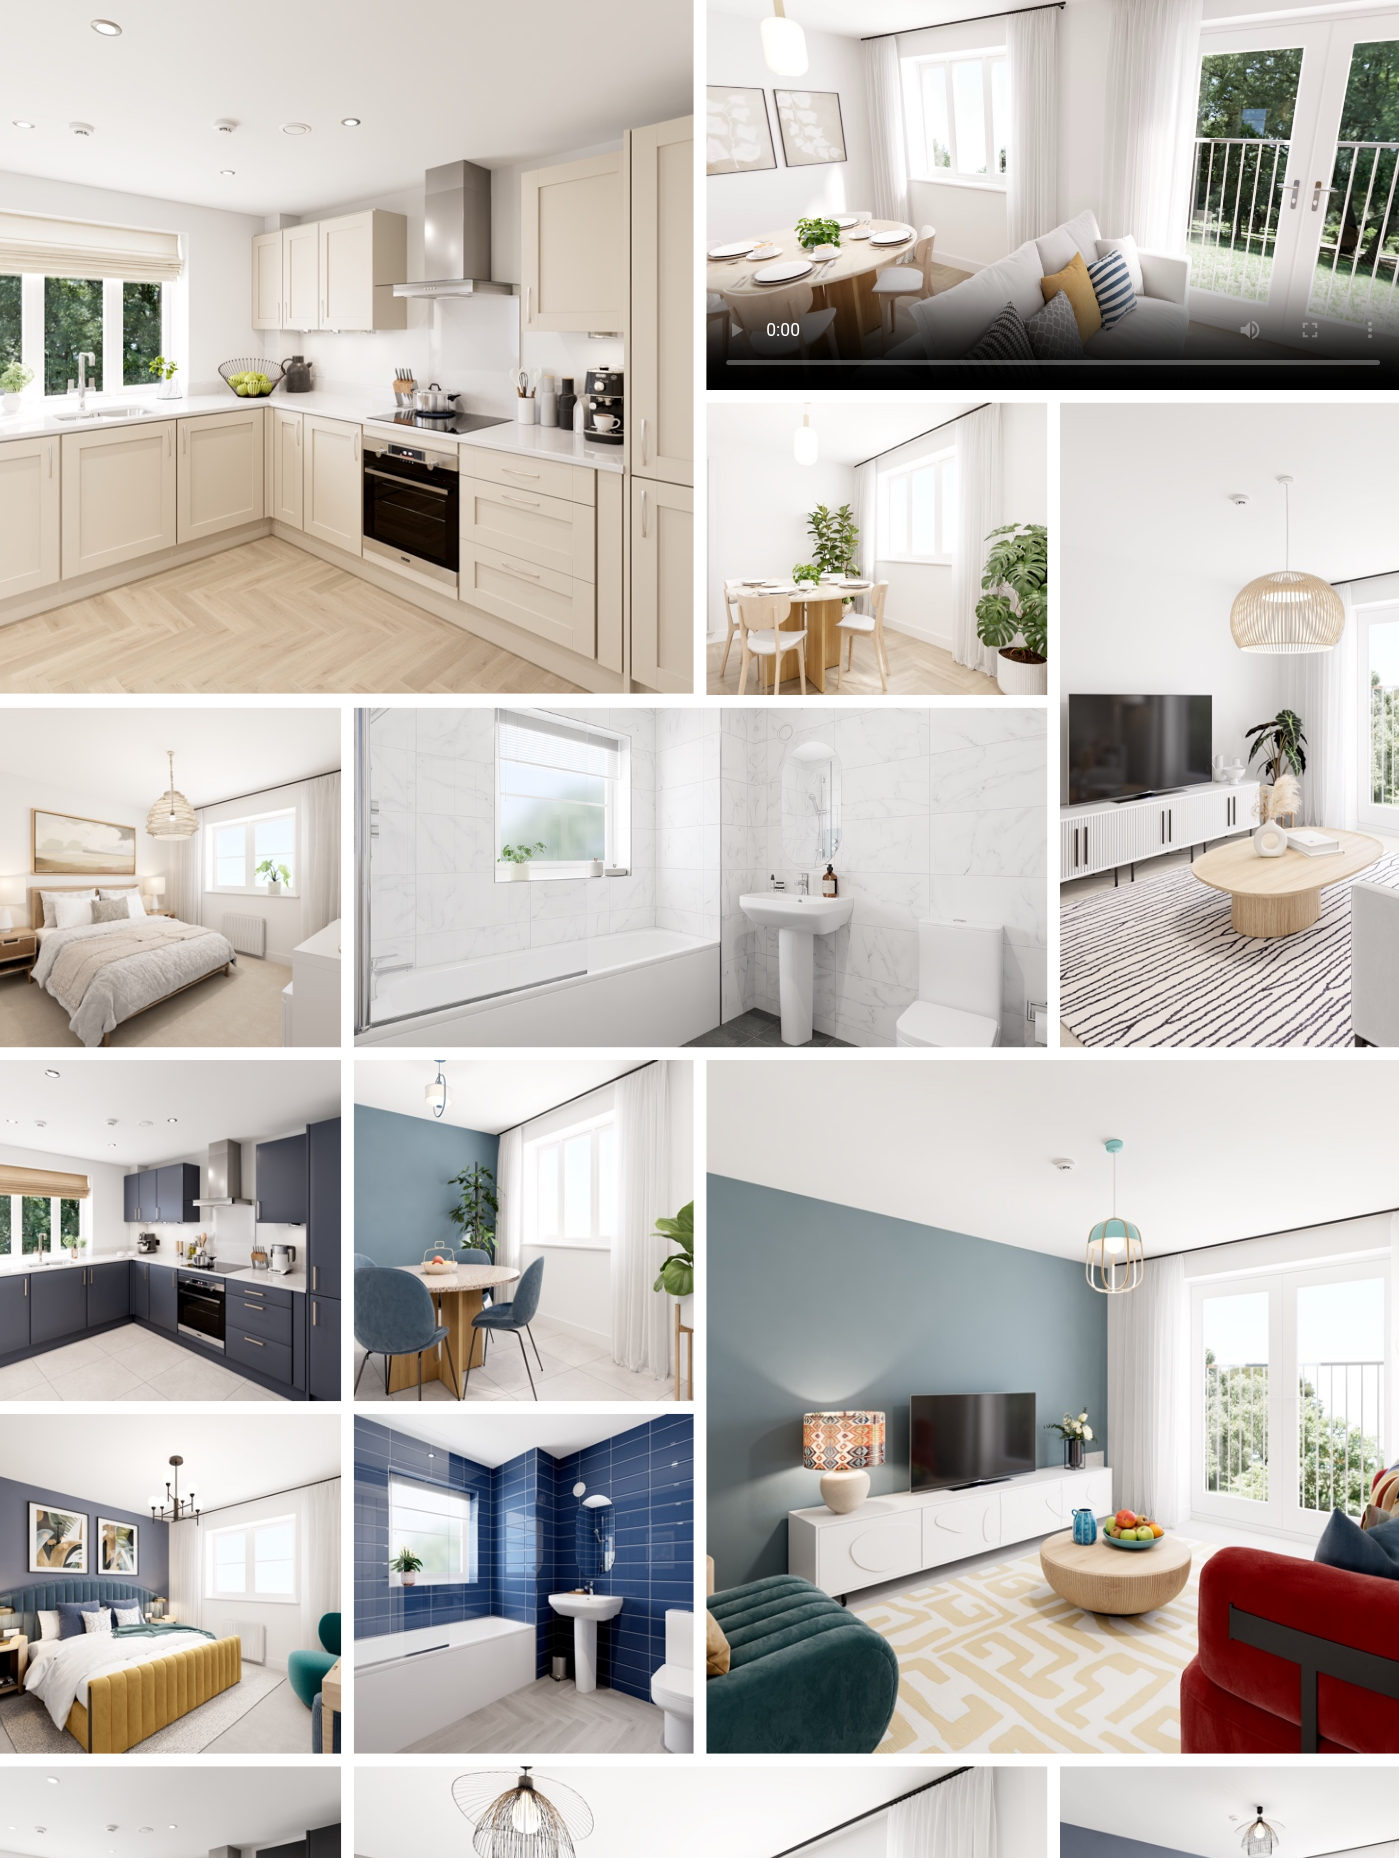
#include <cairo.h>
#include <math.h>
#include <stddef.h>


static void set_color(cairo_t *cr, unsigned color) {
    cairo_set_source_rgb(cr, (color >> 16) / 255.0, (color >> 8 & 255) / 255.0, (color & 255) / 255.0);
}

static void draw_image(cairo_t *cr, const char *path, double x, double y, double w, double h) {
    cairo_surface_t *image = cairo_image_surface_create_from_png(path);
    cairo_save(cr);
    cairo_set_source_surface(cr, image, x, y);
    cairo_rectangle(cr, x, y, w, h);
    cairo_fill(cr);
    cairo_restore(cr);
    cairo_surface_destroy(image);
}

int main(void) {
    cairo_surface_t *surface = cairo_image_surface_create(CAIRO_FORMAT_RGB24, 1399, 1858);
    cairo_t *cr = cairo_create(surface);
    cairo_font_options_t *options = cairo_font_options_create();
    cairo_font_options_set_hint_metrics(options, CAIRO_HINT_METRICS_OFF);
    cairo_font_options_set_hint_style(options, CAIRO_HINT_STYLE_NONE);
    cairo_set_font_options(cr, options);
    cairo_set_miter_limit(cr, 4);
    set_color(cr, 0xFFFFFF);
    cairo_paint(cr);
    draw_image(cr, "assets/img1.png", 0, 0, 694, 694);
    draw_image(cr, "assets/img2.png", 706, 0, 693, 390);
    draw_image(cr, "assets/img3.png", 0, 707, 342, 341);
    draw_image(cr, "assets/img4.png", 706, 402, 342, 293);
    draw_image(cr, "assets/img5.png", 1060, 402, 339, 646);
    draw_image(cr, "assets/img6.png", 353, 707, 695, 341);
    draw_image(cr, "assets/img7.png", 0, 1060, 342, 342);
    draw_image(cr, "assets/img8.png", 353, 1060, 341, 342);
    draw_image(cr, "assets/img9.png", 706, 1060, 693, 694);
    draw_image(cr, "assets/img10.png", 0, 1414, 342, 340);
    draw_image(cr, "assets/img11.png", 353, 1413, 341, 341);
    draw_image(cr, "assets/img12.png", 0, 1766, 342, 92);
    draw_image(cr, "assets/img13.png", 353, 1766, 695, 92);
    draw_image(cr, "assets/img14.png", 1060, 1766, 339, 92);
    cairo_surface_write_to_png(surface, "output.png");
    cairo_font_options_destroy(options);
    cairo_destroy(cr);
    cairo_surface_destroy(surface);
    return 0;
}
